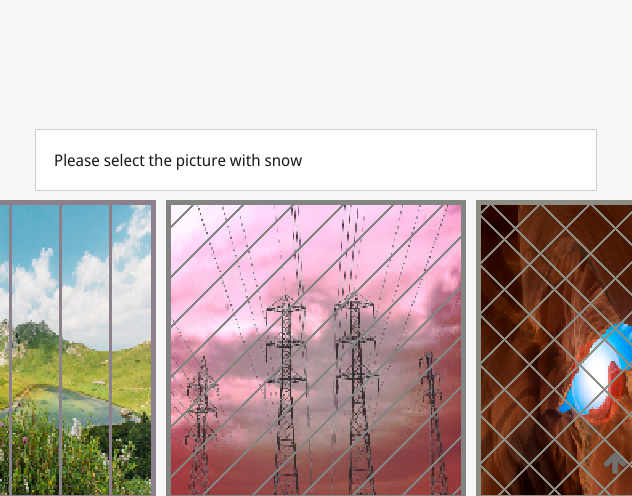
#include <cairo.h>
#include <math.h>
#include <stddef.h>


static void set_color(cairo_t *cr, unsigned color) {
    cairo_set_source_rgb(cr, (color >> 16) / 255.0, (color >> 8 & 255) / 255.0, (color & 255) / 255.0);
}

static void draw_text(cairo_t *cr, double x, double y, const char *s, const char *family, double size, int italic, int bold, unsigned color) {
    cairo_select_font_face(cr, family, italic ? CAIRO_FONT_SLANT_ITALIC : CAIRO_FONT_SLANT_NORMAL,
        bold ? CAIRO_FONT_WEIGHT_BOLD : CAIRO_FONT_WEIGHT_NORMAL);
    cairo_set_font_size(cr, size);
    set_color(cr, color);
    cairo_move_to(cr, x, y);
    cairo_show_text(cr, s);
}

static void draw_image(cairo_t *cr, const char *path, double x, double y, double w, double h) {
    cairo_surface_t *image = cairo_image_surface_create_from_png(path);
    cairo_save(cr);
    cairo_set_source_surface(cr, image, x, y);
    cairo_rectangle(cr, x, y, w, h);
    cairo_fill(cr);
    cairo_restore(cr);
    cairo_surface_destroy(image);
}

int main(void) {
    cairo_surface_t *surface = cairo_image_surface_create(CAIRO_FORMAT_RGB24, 632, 496);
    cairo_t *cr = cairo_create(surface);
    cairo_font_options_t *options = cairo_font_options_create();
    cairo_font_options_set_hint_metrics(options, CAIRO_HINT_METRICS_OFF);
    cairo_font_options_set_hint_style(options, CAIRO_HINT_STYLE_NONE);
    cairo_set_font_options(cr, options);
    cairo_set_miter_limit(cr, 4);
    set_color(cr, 0xF7F7F7);
    cairo_paint(cr);
    set_color(cr, 0xFFFFFF);
    cairo_rectangle(cr, 35.5, 129.5, 561, 61);
    cairo_fill_preserve(cr);
    set_color(cr, 0xCCCCCC);
    cairo_set_line_width(cr, 1);
    cairo_stroke(cr);
    draw_text(cr, 54, 166, "Please select the picture with snow", "Noto Sans Display", 16, 0, 0, 0x1A1A1A);
    draw_image(cr, "assets/img1.png", 0, 200, 156, 296);
    draw_image(cr, "assets/img2.png", 166, 200, 300, 296);
    draw_image(cr, "assets/img3.png", 476, 200, 156, 296);
    draw_image(cr, "assets/img4.png", 603, 452, 24, 22);
    cairo_surface_write_to_png(surface, "output.png");
    cairo_font_options_destroy(options);
    cairo_destroy(cr);
    cairo_surface_destroy(surface);
    return 0;
}
